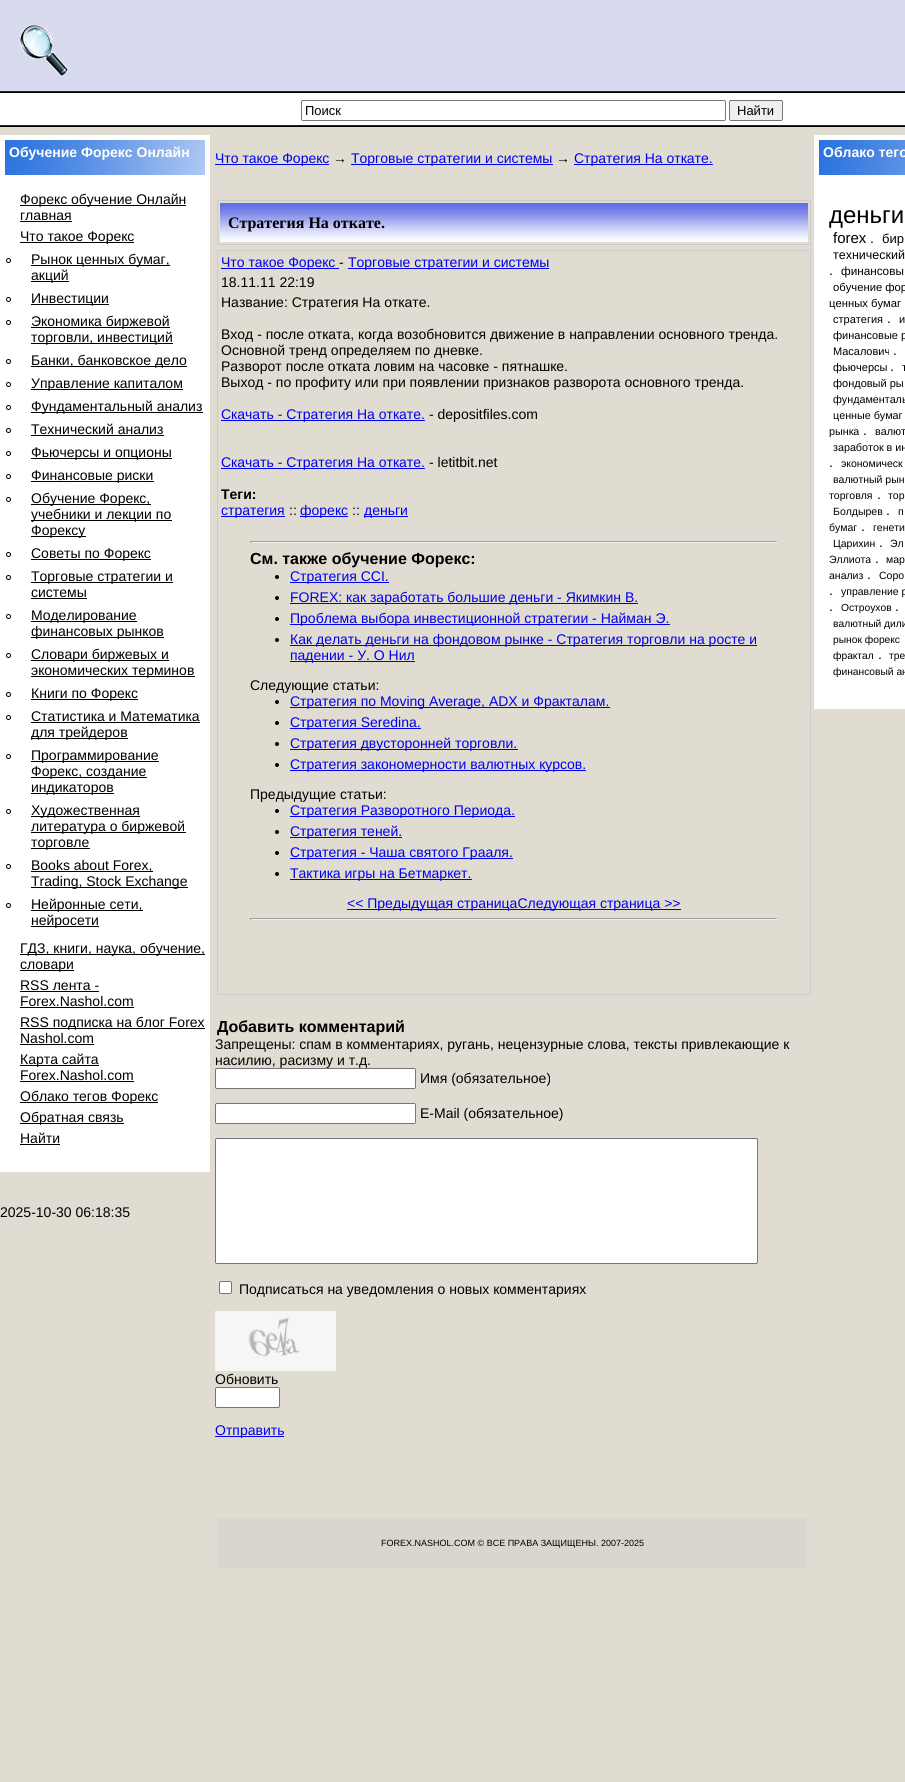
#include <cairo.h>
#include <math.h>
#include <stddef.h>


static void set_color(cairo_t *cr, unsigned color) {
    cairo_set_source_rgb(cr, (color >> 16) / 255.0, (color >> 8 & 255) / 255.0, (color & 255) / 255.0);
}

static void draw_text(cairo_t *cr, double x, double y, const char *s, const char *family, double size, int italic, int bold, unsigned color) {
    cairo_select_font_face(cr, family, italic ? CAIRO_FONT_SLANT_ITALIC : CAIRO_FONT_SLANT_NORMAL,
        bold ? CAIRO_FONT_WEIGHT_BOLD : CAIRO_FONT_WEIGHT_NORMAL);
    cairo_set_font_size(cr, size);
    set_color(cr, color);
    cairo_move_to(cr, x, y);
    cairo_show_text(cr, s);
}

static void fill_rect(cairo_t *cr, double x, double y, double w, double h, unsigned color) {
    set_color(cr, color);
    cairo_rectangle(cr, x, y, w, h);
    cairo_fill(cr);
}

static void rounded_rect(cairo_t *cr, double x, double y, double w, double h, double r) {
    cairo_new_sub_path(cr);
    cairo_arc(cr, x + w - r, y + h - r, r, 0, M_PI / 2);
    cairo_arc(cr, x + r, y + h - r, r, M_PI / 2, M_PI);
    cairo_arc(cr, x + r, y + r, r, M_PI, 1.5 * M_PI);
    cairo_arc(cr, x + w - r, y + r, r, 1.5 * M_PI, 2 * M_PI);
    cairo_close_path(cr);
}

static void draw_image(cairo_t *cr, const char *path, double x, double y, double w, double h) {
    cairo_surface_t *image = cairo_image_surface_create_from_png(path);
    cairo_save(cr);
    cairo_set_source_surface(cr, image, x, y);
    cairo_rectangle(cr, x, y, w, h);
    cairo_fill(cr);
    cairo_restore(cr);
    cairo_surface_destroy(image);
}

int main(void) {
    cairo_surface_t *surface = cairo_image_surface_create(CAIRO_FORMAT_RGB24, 905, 1782);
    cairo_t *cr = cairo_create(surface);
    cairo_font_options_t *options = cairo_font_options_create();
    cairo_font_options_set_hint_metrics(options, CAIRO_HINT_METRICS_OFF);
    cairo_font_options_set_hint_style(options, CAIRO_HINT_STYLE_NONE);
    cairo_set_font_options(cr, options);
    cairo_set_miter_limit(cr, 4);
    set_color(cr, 0xE0DCD1);
    cairo_paint(cr);
    draw_image(cr, "assets/img1.png", 0, 0, 905, 127);
    draw_image(cr, "assets/img2.png", 20, 25, 48, 51);
    rounded_rect(cr, 301.5, 100.5, 424, 20, 1.5);
    set_color(cr, 0x767676);
    cairo_set_line_width(cr, 1);
    cairo_stroke(cr);
    draw_text(cr, 305, 115, "Поиск", "Liberation Sans", 13, 0, 0, 0x000000);
    set_color(cr, 0xEFEFEF);
    rounded_rect(cr, 729.5, 100.5, 53, 20, 1.5);
    cairo_fill_preserve(cr);
    set_color(cr, 0x767676);
    cairo_stroke(cr);
    draw_text(cr, 737, 115, "Найти", "Liberation Sans", 13, 0, 0, 0x000000);
    fill_rect(cr, 0, 135, 210, 1037, 0xFFFFFF);
    draw_image(cr, "assets/img3.png", 5, 140, 200, 35);
    draw_text(cr, 9, 157, "Обучение Форекс Онлайн", "Liberation Sans", 14, 0, 1, 0xFFFFFF);
    fill_rect(cr, 20, 205, 166, 1, 0x000000);
    draw_text(cr, 20, 204, "Форекс обучение Онлайн", "Liberation Sans", 14, 0, 0, 0x000000);
    draw_text(cr, 20, 220, "главная", "Liberation Sans", 14, 0, 0, 0x000000);
    fill_rect(cr, 20, 221, 52, 1, 0x000000);
    fill_rect(cr, 20, 242, 114, 1, 0x000000);
    draw_text(cr, 20, 241, "Что такое Форекс", "Liberation Sans", 14, 0, 0, 0x000000);
    cairo_new_path(cr);
    cairo_arc(cr, 8.5, 260.5, 2, 0, 2 * M_PI);
    cairo_stroke(cr);
    fill_rect(cr, 31, 265, 139, 1, 0x000000);
    draw_text(cr, 31, 264, "Рынок ценных бумаг,", "Liberation Sans", 14, 0, 0, 0x000000);
    fill_rect(cr, 31, 281, 38, 1, 0x000000);
    draw_text(cr, 31, 280, "акций", "Liberation Sans", 14, 0, 0, 0x000000);
    cairo_new_path(cr);
    cairo_arc(cr, 8.5, 299.5, 2, 0, 2 * M_PI);
    cairo_stroke(cr);
    fill_rect(cr, 31, 304, 78, 1, 0x000000);
    draw_text(cr, 31, 303, "Инвестиции", "Liberation Sans", 14, 0, 0, 0x000000);
    cairo_new_path(cr);
    cairo_arc(cr, 8.5, 322.5, 2, 0, 2 * M_PI);
    cairo_stroke(cr);
    fill_rect(cr, 31, 327, 139, 1, 0x000000);
    draw_text(cr, 31, 326, "Экономика биржевой", "Liberation Sans", 14, 0, 0, 0x000000);
    fill_rect(cr, 31, 343, 142, 1, 0x000000);
    draw_text(cr, 31, 342, "торговли, инвестиций", "Liberation Sans", 14, 0, 0, 0x000000);
    cairo_new_path(cr);
    cairo_arc(cr, 8.5, 361.5, 2, 0, 2 * M_PI);
    cairo_stroke(cr);
    fill_rect(cr, 31, 366, 156, 1, 0x000000);
    draw_text(cr, 31, 365, "Банки, банковское дело", "Liberation Sans", 14, 0, 0, 0x000000);
    cairo_new_path(cr);
    cairo_arc(cr, 8.5, 384.5, 2, 0, 2 * M_PI);
    cairo_stroke(cr);
    fill_rect(cr, 31, 389, 152, 1, 0x000000);
    draw_text(cr, 31, 388, "Управление капиталом", "Liberation Sans", 14, 0, 0, 0x000000);
    cairo_new_path(cr);
    cairo_arc(cr, 8.5, 407.5, 2, 0, 2 * M_PI);
    cairo_stroke(cr);
    fill_rect(cr, 31, 412, 172, 1, 0x000000);
    draw_text(cr, 31, 411, "Фундаментальный анализ", "Liberation Sans", 14, 0, 0, 0x000000);
    cairo_new_path(cr);
    cairo_arc(cr, 8.5, 430.5, 2, 0, 2 * M_PI);
    cairo_stroke(cr);
    draw_text(cr, 31, 434, "Технический анализ", "Liberation Sans", 14, 0, 0, 0x000000);
    fill_rect(cr, 31, 435, 133, 1, 0x000000);
    cairo_new_path(cr);
    cairo_arc(cr, 8.5, 453.5, 2, 0, 2 * M_PI);
    cairo_stroke(cr);
    fill_rect(cr, 31, 458, 141, 1, 0x000000);
    draw_text(cr, 31, 457, "Фьючерсы и опционы", "Liberation Sans", 14, 0, 0, 0x000000);
    cairo_new_path(cr);
    cairo_arc(cr, 8.5, 476.5, 2, 0, 2 * M_PI);
    cairo_stroke(cr);
    fill_rect(cr, 31, 481, 123, 1, 0x000000);
    draw_text(cr, 31, 480, "Финансовые риски", "Liberation Sans", 14, 0, 0, 0x000000);
    cairo_new_path(cr);
    cairo_arc(cr, 8.5, 499.5, 2, 0, 2 * M_PI);
    cairo_stroke(cr);
    fill_rect(cr, 31, 504, 120, 1, 0x000000);
    draw_text(cr, 31, 503, "Обучение Форекс,", "Liberation Sans", 14, 0, 0, 0x000000);
    fill_rect(cr, 31, 520, 141, 1, 0x000000);
    draw_text(cr, 31, 519, "учебники и лекции по", "Liberation Sans", 14, 0, 0, 0x000000);
    fill_rect(cr, 31, 536, 55, 1, 0x000000);
    draw_text(cr, 31, 535, "Форексу", "Liberation Sans", 14, 0, 0, 0x000000);
    cairo_new_path(cr);
    cairo_arc(cr, 8.5, 554.5, 2, 0, 2 * M_PI);
    cairo_stroke(cr);
    fill_rect(cr, 31, 559, 120, 1, 0x000000);
    draw_text(cr, 31, 558, "Советы по Форекс", "Liberation Sans", 14, 0, 0, 0x000000);
    cairo_new_path(cr);
    cairo_arc(cr, 8.5, 577.5, 2, 0, 2 * M_PI);
    cairo_stroke(cr);
    fill_rect(cr, 31, 582, 142, 1, 0x000000);
    draw_text(cr, 31, 581, "Торговые стратегии и", "Liberation Sans", 14, 0, 0, 0x000000);
    draw_text(cr, 31, 597, "системы", "Liberation Sans", 14, 0, 0, 0x000000);
    fill_rect(cr, 31, 598, 56, 1, 0x000000);
    cairo_new_path(cr);
    cairo_arc(cr, 8.5, 616.5, 2, 0, 2 * M_PI);
    cairo_stroke(cr);
    fill_rect(cr, 31, 621, 106, 1, 0x000000);
    draw_text(cr, 31, 620, "Моделирование", "Liberation Sans", 14, 0, 0, 0x000000);
    fill_rect(cr, 31, 637, 133, 1, 0x000000);
    draw_text(cr, 31, 636, "финансовых рынков", "Liberation Sans", 14, 0, 0, 0x000000);
    cairo_new_path(cr);
    cairo_arc(cr, 8.5, 655.5, 2, 0, 2 * M_PI);
    cairo_stroke(cr);
    fill_rect(cr, 31, 660, 138, 1, 0x000000);
    draw_text(cr, 31, 659, "Словари биржевых и", "Liberation Sans", 14, 0, 0, 0x000000);
    fill_rect(cr, 31, 676, 164, 1, 0x000000);
    draw_text(cr, 31, 675, "экономических терминов", "Liberation Sans", 14, 0, 0, 0x000000);
    cairo_new_path(cr);
    cairo_arc(cr, 8.5, 694.5, 2, 0, 2 * M_PI);
    cairo_stroke(cr);
    fill_rect(cr, 31, 699, 107, 1, 0x000000);
    draw_text(cr, 31, 698, "Книги по Форекс", "Liberation Sans", 14, 0, 0, 0x000000);
    cairo_new_path(cr);
    cairo_arc(cr, 8.5, 717.5, 2, 0, 2 * M_PI);
    cairo_stroke(cr);
    draw_text(cr, 31, 721, "Статистика и Математика", "Liberation Sans", 14, 0, 0, 0x000000);
    fill_rect(cr, 31, 722, 169, 1, 0x000000);
    fill_rect(cr, 31, 738, 97, 1, 0x000000);
    draw_text(cr, 31, 737, "для трейдеров", "Liberation Sans", 14, 0, 0, 0x000000);
    cairo_new_path(cr);
    cairo_arc(cr, 8.5, 756.5, 2, 0, 2 * M_PI);
    cairo_stroke(cr);
    fill_rect(cr, 31, 761, 128, 1, 0x000000);
    draw_text(cr, 31, 760, "Программирование", "Liberation Sans", 14, 0, 0, 0x000000);
    fill_rect(cr, 31, 777, 116, 1, 0x000000);
    draw_text(cr, 31, 776, "Форекс, создание", "Liberation Sans", 14, 0, 0, 0x000000);
    fill_rect(cr, 31, 793, 83, 1, 0x000000);
    draw_text(cr, 31, 792, "индикаторов", "Liberation Sans", 14, 0, 0, 0x000000);
    cairo_new_path(cr);
    cairo_arc(cr, 8.5, 811.5, 2, 0, 2 * M_PI);
    cairo_stroke(cr);
    fill_rect(cr, 31, 816, 109, 1, 0x000000);
    draw_text(cr, 31, 815, "Художественная", "Liberation Sans", 14, 0, 0, 0x000000);
    fill_rect(cr, 31, 832, 155, 1, 0x000000);
    draw_text(cr, 31, 831, "литература о биржевой", "Liberation Sans", 14, 0, 0, 0x000000);
    fill_rect(cr, 31, 848, 59, 1, 0x000000);
    draw_text(cr, 31, 847, "торговле", "Liberation Sans", 14, 0, 0, 0x000000);
    cairo_new_path(cr);
    cairo_arc(cr, 8.5, 866.5, 2, 0, 2 * M_PI);
    cairo_stroke(cr);
    fill_rect(cr, 31, 871, 122, 1, 0x000000);
    draw_text(cr, 31, 870, "Books about Forex,", "Liberation Sans", 14, 0, 0, 0x000000);
    fill_rect(cr, 31, 887, 157, 1, 0x000000);
    draw_text(cr, 31, 886, "Trading, Stock Exchange", "Liberation Sans", 14, 0, 0, 0x000000);
    cairo_new_path(cr);
    cairo_arc(cr, 8.5, 905.5, 2, 0, 2 * M_PI);
    cairo_stroke(cr);
    fill_rect(cr, 31, 910, 112, 1, 0x000000);
    draw_text(cr, 31, 909, "Нейронные сети,", "Liberation Sans", 14, 0, 0, 0x000000);
    fill_rect(cr, 31, 926, 68, 1, 0x000000);
    draw_text(cr, 31, 925, "нейросети", "Liberation Sans", 14, 0, 0, 0x000000);
    fill_rect(cr, 20, 954, 185, 1, 0x000000);
    draw_text(cr, 20, 953, "ГДЗ, книги, наука, обучение,", "Liberation Sans", 14, 0, 0, 0x000000);
    fill_rect(cr, 20, 970, 54, 1, 0x000000);
    draw_text(cr, 20, 969, "словари", "Liberation Sans", 14, 0, 0, 0x000000);
    draw_text(cr, 20, 990, "RSS лента -", "Liberation Sans", 14, 0, 0, 0x000000);
    fill_rect(cr, 20, 991, 79, 1, 0x000000);
    draw_text(cr, 20, 1006, "Forex.Nashol.com", "Liberation Sans", 14, 0, 0, 0x000000);
    fill_rect(cr, 20, 1007, 114, 1, 0x000000);
    fill_rect(cr, 20, 1028, 185, 1, 0x000000);
    draw_text(cr, 20, 1027, "RSS подписка на блог Forex", "Liberation Sans", 14, 0, 0, 0x000000);
    draw_text(cr, 20, 1043, "Nashol.com", "Liberation Sans", 14, 0, 0, 0x000000);
    fill_rect(cr, 20, 1044, 74, 1, 0x000000);
    fill_rect(cr, 20, 1065, 79, 1, 0x000000);
    draw_text(cr, 20, 1064, "Карта сайта", "Liberation Sans", 14, 0, 0, 0x000000);
    draw_text(cr, 20, 1080, "Forex.Nashol.com", "Liberation Sans", 14, 0, 0, 0x000000);
    fill_rect(cr, 20, 1081, 114, 1, 0x000000);
    fill_rect(cr, 20, 1102, 138, 1, 0x000000);
    draw_text(cr, 20, 1101, "Облако тегов Форекс", "Liberation Sans", 14, 0, 0, 0x000000);
    fill_rect(cr, 20, 1123, 104, 1, 0x000000);
    draw_text(cr, 20, 1122, "Обратная связь", "Liberation Sans", 14, 0, 0, 0x000000);
    draw_text(cr, 20, 1143, "Найти", "Liberation Sans", 14, 0, 0, 0x000000);
    fill_rect(cr, 20, 1144, 40, 1, 0x000000);
    draw_text(cr, 0, 1217, "2025-10-30 06:18:35", "Liberation Sans", 14, 0, 0, 0x000000);
    fill_rect(cr, 215, 164, 114, 1, 0x0000EE);
    draw_text(cr, 215, 163, "Что такое Форекс", "Liberation Sans", 14, 0, 0, 0x0000EE);
    draw_text(cr, 333, 163, "→", "Liberation Sans", 14, 0, 0, 0x000000);
    fill_rect(cr, 351, 164, 202, 1, 0x0000EE);
    draw_text(cr, 351, 163, "Торговые стратегии и системы", "Liberation Sans", 14, 0, 0, 0x0000EE);
    draw_text(cr, 556, 163, "→", "Liberation Sans", 14, 0, 0, 0x000000);
    fill_rect(cr, 574, 164, 139, 1, 0x0000EE);
    draw_text(cr, 574, 163, "Стратегия На откате.", "Liberation Sans", 14, 0, 0, 0x0000EE);
    cairo_rectangle(cr, 217.5, 200.5, 593, 44);
    set_color(cr, 0xCCCCCC);
    cairo_stroke(cr);
    draw_image(cr, "assets/img4.png", 220, 203, 588, 39);
    draw_text(cr, 228, 228, "Стратегия На откате.", "Liberation Serif", 16, 0, 1, 0x000000);
    cairo_rectangle(cr, 217.5, 250.5, 593, 744);
    set_color(cr, 0xCCCCCC);
    cairo_stroke(cr);
    fill_rect(cr, 221, 268, 118, 1, 0x0000EE);
    draw_text(cr, 221, 267, "Что такое Форекс", "Liberation Sans", 14, 0, 0, 0x0000EE);
    draw_text(cr, 339, 267, "-", "Liberation Sans", 14, 0, 0, 0x000000);
    fill_rect(cr, 348, 268, 201, 1, 0x0000EE);
    draw_text(cr, 348, 267, "Торговые стратегии и системы", "Liberation Sans", 14, 0, 0, 0x0000EE);
    draw_text(cr, 221, 287, "18.11.11 22:19", "Liberation Sans", 14, 0, 0, 0x000000);
    draw_text(cr, 221, 307, "Название: Стратегия На откате.", "Liberation Sans", 14, 0, 0, 0x000000);
    draw_text(cr, 221, 339, "Вход - после отката, когда возобновится движение в направлении основного тренда.", "Liberation Sans", 14, 0, 0, 0x000000);
    draw_text(cr, 221, 355, "Основной тренд определяем по дневке.", "Liberation Sans", 14, 0, 0, 0x000000);
    draw_text(cr, 221, 371, "Разворот после отката ловим на часовке - пятнашке.", "Liberation Sans", 14, 0, 0, 0x000000);
    draw_text(cr, 221, 387, "Выход - по профиту или при появлении признаков разворота основного тренда.", "Liberation Sans", 14, 0, 0, 0x000000);
    fill_rect(cr, 221, 420, 204, 1, 0x0000EE);
    draw_text(cr, 221, 419, "Скачать - Стратегия На откате.", "Liberation Sans", 14, 0, 0, 0x0000EE);
    draw_text(cr, 429, 419, "- depositfiles.com", "Liberation Sans", 14, 0, 0, 0x000000);
    fill_rect(cr, 221, 468, 204, 1, 0x0000EE);
    draw_text(cr, 221, 467, "Скачать - Стратегия На откате.", "Liberation Sans", 14, 0, 0, 0x0000EE);
    draw_text(cr, 429, 467, "- letitbit.net", "Liberation Sans", 14, 0, 0, 0x000000);
    draw_text(cr, 221, 499, "Теги:", "Liberation Sans", 14, 0, 1, 0x000000);
    fill_rect(cr, 221, 516, 64, 1, 0x0000EE);
    draw_text(cr, 221, 515, "стратегия", "Liberation Sans", 14, 0, 0, 0x0000EE);
    draw_text(cr, 289, 515, "::", "Liberation Sans", 14, 0, 0, 0x000000);
    fill_rect(cr, 300, 516, 48, 1, 0x0000EE);
    draw_text(cr, 300, 515, "форекс", "Liberation Sans", 14, 0, 0, 0x0000EE);
    draw_text(cr, 352, 515, "::", "Liberation Sans", 14, 0, 0, 0x000000);
    fill_rect(cr, 364, 516, 44, 1, 0x0000EE);
    draw_text(cr, 364, 515, "деньги", "Liberation Sans", 14, 0, 0, 0x0000EE);
    fill_rect(cr, 250, 541, 528, 1, 0x9F9F9F);
    fill_rect(cr, 777, 541, 1, 2, 0xEEEEEE);
    fill_rect(cr, 250, 542, 528, 1, 0xEEEEEE);
    fill_rect(cr, 250, 541, 1, 2, 0x9F9F9F);
    draw_text(cr, 250, 564, "См. также обучение Форекс:", "Liberation Sans", 16, 0, 1, 0x000000);
    cairo_new_path(cr);
    cairo_arc(cr, 277, 577, 2, 0, 2 * M_PI);
    cairo_fill(cr);
    fill_rect(cr, 290, 582, 99, 1, 0x0000EE);
    draw_text(cr, 290, 581, "Стратегия ССI.", "Liberation Sans", 14, 0, 0, 0x0000EE);
    set_color(cr, 0x000000);
    cairo_new_path(cr);
    cairo_arc(cr, 277, 598, 2, 0, 2 * M_PI);
    cairo_fill(cr);
    fill_rect(cr, 290, 603, 348, 1, 0x0000EE);
    draw_text(cr, 290, 602, "FOREX: как заработать большие деньги - Якимкин В.", "Liberation Sans", 14, 0, 0, 0x0000EE);
    set_color(cr, 0x000000);
    cairo_new_path(cr);
    cairo_arc(cr, 277, 619, 2, 0, 2 * M_PI);
    cairo_fill(cr);
    fill_rect(cr, 290, 624, 380, 1, 0x0000EE);
    draw_text(cr, 290, 623, "Проблема выбора инвестиционной стратегии - Найман Э.", "Liberation Sans", 14, 0, 0, 0x0000EE);
    set_color(cr, 0x000000);
    cairo_new_path(cr);
    cairo_arc(cr, 277, 640, 2, 0, 2 * M_PI);
    cairo_fill(cr);
    fill_rect(cr, 290, 645, 467, 1, 0x0000EE);
    draw_text(cr, 290, 644, "Как делать деньги на фондовом рынке - Стратегия торговли на росте и", "Liberation Sans", 14, 0, 0, 0x0000EE);
    fill_rect(cr, 290, 661, 125, 1, 0x0000EE);
    draw_text(cr, 290, 660, "падении - У. О Нил", "Liberation Sans", 14, 0, 0, 0x0000EE);
    draw_text(cr, 250, 690, "Следующие статьи:", "Liberation Sans", 14, 0, 0, 0x000000);
    cairo_new_path(cr);
    cairo_arc(cr, 277, 702, 2, 0, 2 * M_PI);
    cairo_fill(cr);
    fill_rect(cr, 290, 707, 320, 1, 0x0000EE);
    draw_text(cr, 290, 706, "Стратегия по Moving Average, ADX и Фракталам.", "Liberation Sans", 14, 0, 0, 0x0000EE);
    set_color(cr, 0x000000);
    cairo_new_path(cr);
    cairo_arc(cr, 277, 723, 2, 0, 2 * M_PI);
    cairo_fill(cr);
    fill_rect(cr, 290, 728, 131, 1, 0x0000EE);
    draw_text(cr, 290, 727, "Стратегия Seredina.", "Liberation Sans", 14, 0, 0, 0x0000EE);
    set_color(cr, 0x000000);
    cairo_new_path(cr);
    cairo_arc(cr, 277, 744, 2, 0, 2 * M_PI);
    cairo_fill(cr);
    fill_rect(cr, 290, 749, 228, 1, 0x0000EE);
    draw_text(cr, 290, 748, "Стратегия двусторонней торговли.", "Liberation Sans", 14, 0, 0, 0x0000EE);
    set_color(cr, 0x000000);
    cairo_new_path(cr);
    cairo_arc(cr, 277, 765, 2, 0, 2 * M_PI);
    cairo_fill(cr);
    fill_rect(cr, 290, 770, 296, 1, 0x0000EE);
    draw_text(cr, 290, 769, "Стратегия закономерности валютных курсов.", "Liberation Sans", 14, 0, 0, 0x0000EE);
    draw_text(cr, 250, 799, "Предыдущие статьи:", "Liberation Sans", 14, 0, 0, 0x000000);
    cairo_new_path(cr);
    cairo_arc(cr, 277, 811, 2, 0, 2 * M_PI);
    cairo_fill(cr);
    fill_rect(cr, 290, 816, 225, 1, 0x0000EE);
    draw_text(cr, 290, 815, "Стратегия Разворотного Периода.", "Liberation Sans", 14, 0, 0, 0x0000EE);
    set_color(cr, 0x000000);
    cairo_new_path(cr);
    cairo_arc(cr, 277, 832, 2, 0, 2 * M_PI);
    cairo_fill(cr);
    fill_rect(cr, 290, 837, 112, 1, 0x0000EE);
    draw_text(cr, 290, 836, "Стратегия теней.", "Liberation Sans", 14, 0, 0, 0x0000EE);
    set_color(cr, 0x000000);
    cairo_new_path(cr);
    cairo_arc(cr, 277, 853, 2, 0, 2 * M_PI);
    cairo_fill(cr);
    fill_rect(cr, 290, 858, 223, 1, 0x0000EE);
    draw_text(cr, 290, 857, "Стратегия - Чаша святого Грааля.", "Liberation Sans", 14, 0, 0, 0x0000EE);
    set_color(cr, 0x000000);
    cairo_new_path(cr);
    cairo_arc(cr, 277, 874, 2, 0, 2 * M_PI);
    cairo_fill(cr);
    fill_rect(cr, 290, 879, 182, 1, 0x0000EE);
    draw_text(cr, 290, 878, "Тактика игры на Бетмаркет.", "Liberation Sans", 14, 0, 0, 0x0000EE);
    fill_rect(cr, 347, 909, 334, 1, 0x0000EE);
    draw_text(cr, 347, 908, "<< Предыдущая страницаСледующая страница >>", "Liberation Sans", 14, 0, 0, 0x0000EE);
    fill_rect(cr, 250, 918, 528, 1, 0x9F9F9F);
    fill_rect(cr, 777, 918, 1, 2, 0xEEEEEE);
    fill_rect(cr, 250, 919, 528, 1, 0xEEEEEE);
    fill_rect(cr, 250, 918, 1, 2, 0x9F9F9F);
    draw_text(cr, 217, 1032, "Добавить комментарий", "Liberation Sans", 16, 0, 1, 0x000000);
    draw_text(cr, 215, 1049, "Запрещены: спам в комментариях, ругань, нецензурные слова, тексты привлекающие к", "Liberation Sans", 14, 0, 0, 0x000000);
    draw_text(cr, 215, 1065, "насилию, расизму и т.д.", "Liberation Sans", 14, 0, 0, 0x000000);
    set_color(cr, 0xFFFFFF);
    rounded_rect(cr, 215.5, 1068.5, 200, 20, 1.5);
    cairo_fill_preserve(cr);
    set_color(cr, 0x767676);
    cairo_stroke(cr);
    draw_text(cr, 420, 1083, "Имя (обязательное)", "Liberation Sans", 14, 0, 0, 0x000000);
    set_color(cr, 0xFFFFFF);
    rounded_rect(cr, 215.5, 1103.5, 200, 20, 1.5);
    cairo_fill_preserve(cr);
    set_color(cr, 0x767676);
    cairo_stroke(cr);
    draw_text(cr, 420, 1118, "E-Mail (обязательное)", "Liberation Sans", 14, 0, 0, 0x000000);
    set_color(cr, 0xFFFFFF);
    rounded_rect(cr, 215.5, 1138.5, 542, 125, 1.5);
    cairo_fill_preserve(cr);
    set_color(cr, 0x767676);
    cairo_stroke(cr);
    set_color(cr, 0xFFFFFF);
    rounded_rect(cr, 219.5, 1281.5, 12, 12, 1.5);
    cairo_fill_preserve(cr);
    set_color(cr, 0x767676);
    cairo_stroke(cr);
    draw_text(cr, 239, 1294, "Подписаться на уведомления о новых комментариях", "Liberation Sans", 14, 0, 0, 0x000000);
    draw_image(cr, "assets/img5.png", 215, 1311, 121, 60);
    draw_text(cr, 215, 1384, "Обновить", "Liberation Sans", 14, 0, 0, 0x000000);
    set_color(cr, 0xFFFFFF);
    rounded_rect(cr, 215.5, 1387.5, 64, 20, 1.5);
    cairo_fill_preserve(cr);
    set_color(cr, 0x767676);
    cairo_stroke(cr);
    fill_rect(cr, 215, 1436, 69, 1, 0x0000EE);
    draw_text(cr, 215, 1435, "Отправить", "Liberation Sans", 14, 0, 0, 0x0000EE);
    fill_rect(cr, 814, 135, 91, 574, 0xFFFFFF);
    draw_image(cr, "assets/img6.png", 819, 140, 86, 35);
    draw_text(cr, 823, 157, "Облако тего", "Liberation Sans", 14, 0, 1, 0xFFFFFF);
    draw_text(cr, 829, 223, "деньги", "Liberation Sans", 24, 0, 0, 0x000000);
    draw_text(cr, 833, 243, "forex", "Liberation Sans", 15, 0, 0, 0x000000);
    draw_text(cr, 870, 243, ".", "Liberation Sans", 14, 0, 0, 0x000000);
    draw_text(cr, 882, 243, "бир", "Liberation Sans", 13, 0, 0, 0x000000);
    draw_text(cr, 833, 259, "технический", "Liberation Sans", 12.5, 0, 0, 0x000000);
    draw_text(cr, 829, 275, ".", "Liberation Sans", 14, 0, 0, 0x000000);
    draw_text(cr, 841, 275, "финансовы", "Liberation Sans", 11.75, 0, 0, 0x000000);
    draw_text(cr, 833, 291, "обучение фор", "Liberation Sans", 11.25, 0, 0, 0x000000);
    draw_text(cr, 829, 307, "ценных бумаг", "Liberation Sans", 11.25, 0, 0, 0x000000);
    draw_text(cr, 833, 323, "стратегия", "Liberation Sans", 11, 0, 0, 0x000000);
    draw_text(cr, 887, 323, ".", "Liberation Sans", 14, 0, 0, 0x000000);
    draw_text(cr, 899, 323, "и", "Liberation Sans", 11, 0, 0, 0x000000);
    draw_text(cr, 833, 339, "финансовые р", "Liberation Sans", 11, 0, 0, 0x000000);
    draw_text(cr, 833, 355, "Масалович", "Liberation Sans", 11, 0, 0, 0x000000);
    draw_text(cr, 893, 355, ".", "Liberation Sans", 14, 0, 0, 0x000000);
    draw_text(cr, 833, 371, "фьючерсы", "Liberation Sans", 11, 0, 0, 0x000000);
    draw_text(cr, 890, 371, ".", "Liberation Sans", 14, 0, 0, 0x000000);
    draw_text(cr, 902, 371, "т", "Liberation Sans", 11, 0, 0, 0x000000);
    draw_text(cr, 833, 387, "фондовый ры", "Liberation Sans", 11, 0, 0, 0x000000);
    draw_text(cr, 833, 403, "фундаменталь", "Liberation Sans", 10.75, 0, 0, 0x000000);
    draw_text(cr, 833, 419, "ценные бумаг", "Liberation Sans", 10.75, 0, 0, 0x000000);
    draw_text(cr, 829, 435, "рынка", "Liberation Sans", 10.75, 0, 0, 0x000000);
    draw_text(cr, 863, 435, ".", "Liberation Sans", 14, 0, 0, 0x000000);
    draw_text(cr, 875, 435, "валют", "Liberation Sans", 10.75, 0, 0, 0x000000);
    draw_text(cr, 833, 451, "заработок в ин", "Liberation Sans", 10.75, 0, 0, 0x000000);
    draw_text(cr, 829, 467, ".", "Liberation Sans", 14, 0, 0, 0x000000);
    draw_text(cr, 841, 467, "экономическ", "Liberation Sans", 10.5, 0, 0, 0x000000);
    draw_text(cr, 833, 483, "валютный рын", "Liberation Sans", 10.5, 0, 0, 0x000000);
    draw_text(cr, 829, 499, "торговля", "Liberation Sans", 10.5, 0, 0, 0x000000);
    draw_text(cr, 877, 499, ".", "Liberation Sans", 14, 0, 0, 0x000000);
    draw_text(cr, 888, 499, "тор", "Liberation Sans", 10.5, 0, 0, 0x000000);
    draw_text(cr, 833, 515, "Болдырев", "Liberation Sans", 10.5, 0, 0, 0x000000);
    draw_text(cr, 886, 515, ".", "Liberation Sans", 14, 0, 0, 0x000000);
    draw_text(cr, 898, 515, "п", "Liberation Sans", 10.5, 0, 0, 0x000000);
    draw_text(cr, 829, 531, "бумаг", "Liberation Sans", 10.5, 0, 0, 0x000000);
    draw_text(cr, 861, 531, ".", "Liberation Sans", 14, 0, 0, 0x000000);
    draw_text(cr, 873, 531, "генети", "Liberation Sans", 10.5, 0, 0, 0x000000);
    draw_text(cr, 833, 547, "Царихин", "Liberation Sans", 10.5, 0, 0, 0x000000);
    draw_text(cr, 879, 547, ".", "Liberation Sans", 14, 0, 0, 0x000000);
    draw_text(cr, 890, 547, "Эл", "Liberation Sans", 10.5, 0, 0, 0x000000);
    draw_text(cr, 829, 563, "Эллиота", "Liberation Sans", 10.5, 0, 0, 0x000000);
    draw_text(cr, 875, 563, ".", "Liberation Sans", 14, 0, 0, 0x000000);
    draw_text(cr, 886, 563, "мар", "Liberation Sans", 10.5, 0, 0, 0x000000);
    draw_text(cr, 829, 579, "анализ", "Liberation Sans", 10.5, 0, 0, 0x000000);
    draw_text(cr, 867, 579, ".", "Liberation Sans", 14, 0, 0, 0x000000);
    draw_text(cr, 879, 579, "Соро", "Liberation Sans", 10.5, 0, 0, 0x000000);
    draw_text(cr, 829, 595, ".", "Liberation Sans", 14, 0, 0, 0x000000);
    draw_text(cr, 841, 595, "управление р", "Liberation Sans", 10.5, 0, 0, 0x000000);
    draw_text(cr, 829, 611, ".", "Liberation Sans", 14, 0, 0, 0x000000);
    draw_text(cr, 841, 611, "Остроухов", "Liberation Sans", 10.25, 0, 0, 0x000000);
    draw_text(cr, 895, 611, ".", "Liberation Sans", 14, 0, 0, 0x000000);
    draw_text(cr, 833, 627, "валютный дили", "Liberation Sans", 10.25, 0, 0, 0x000000);
    draw_text(cr, 833, 643, "рынок форекс", "Liberation Sans", 10.25, 0, 0, 0x000000);
    draw_text(cr, 833, 659, "фрактал", "Liberation Sans", 10.25, 0, 0, 0x000000);
    draw_text(cr, 878, 659, ".", "Liberation Sans", 14, 0, 0, 0x000000);
    draw_text(cr, 889, 659, "тре", "Liberation Sans", 10.25, 0, 0, 0x000000);
    draw_text(cr, 833, 675, "финансовый ан", "Liberation Sans", 10.25, 0, 0, 0x000000);
    fill_rect(cr, 217, 1518, 590, 50, 0xD9D6CF);
    draw_text(cr, 381, 1546, "FOREX.NASHOL.COM © ВСЕ ПРАВА ЗАЩИЩЕНЫ. 2007-2025", "Liberation Sans", 9, 0, 0, 0x000000);
    cairo_surface_write_to_png(surface, "output.png");
    cairo_font_options_destroy(options);
    cairo_destroy(cr);
    cairo_surface_destroy(surface);
    return 0;
}
